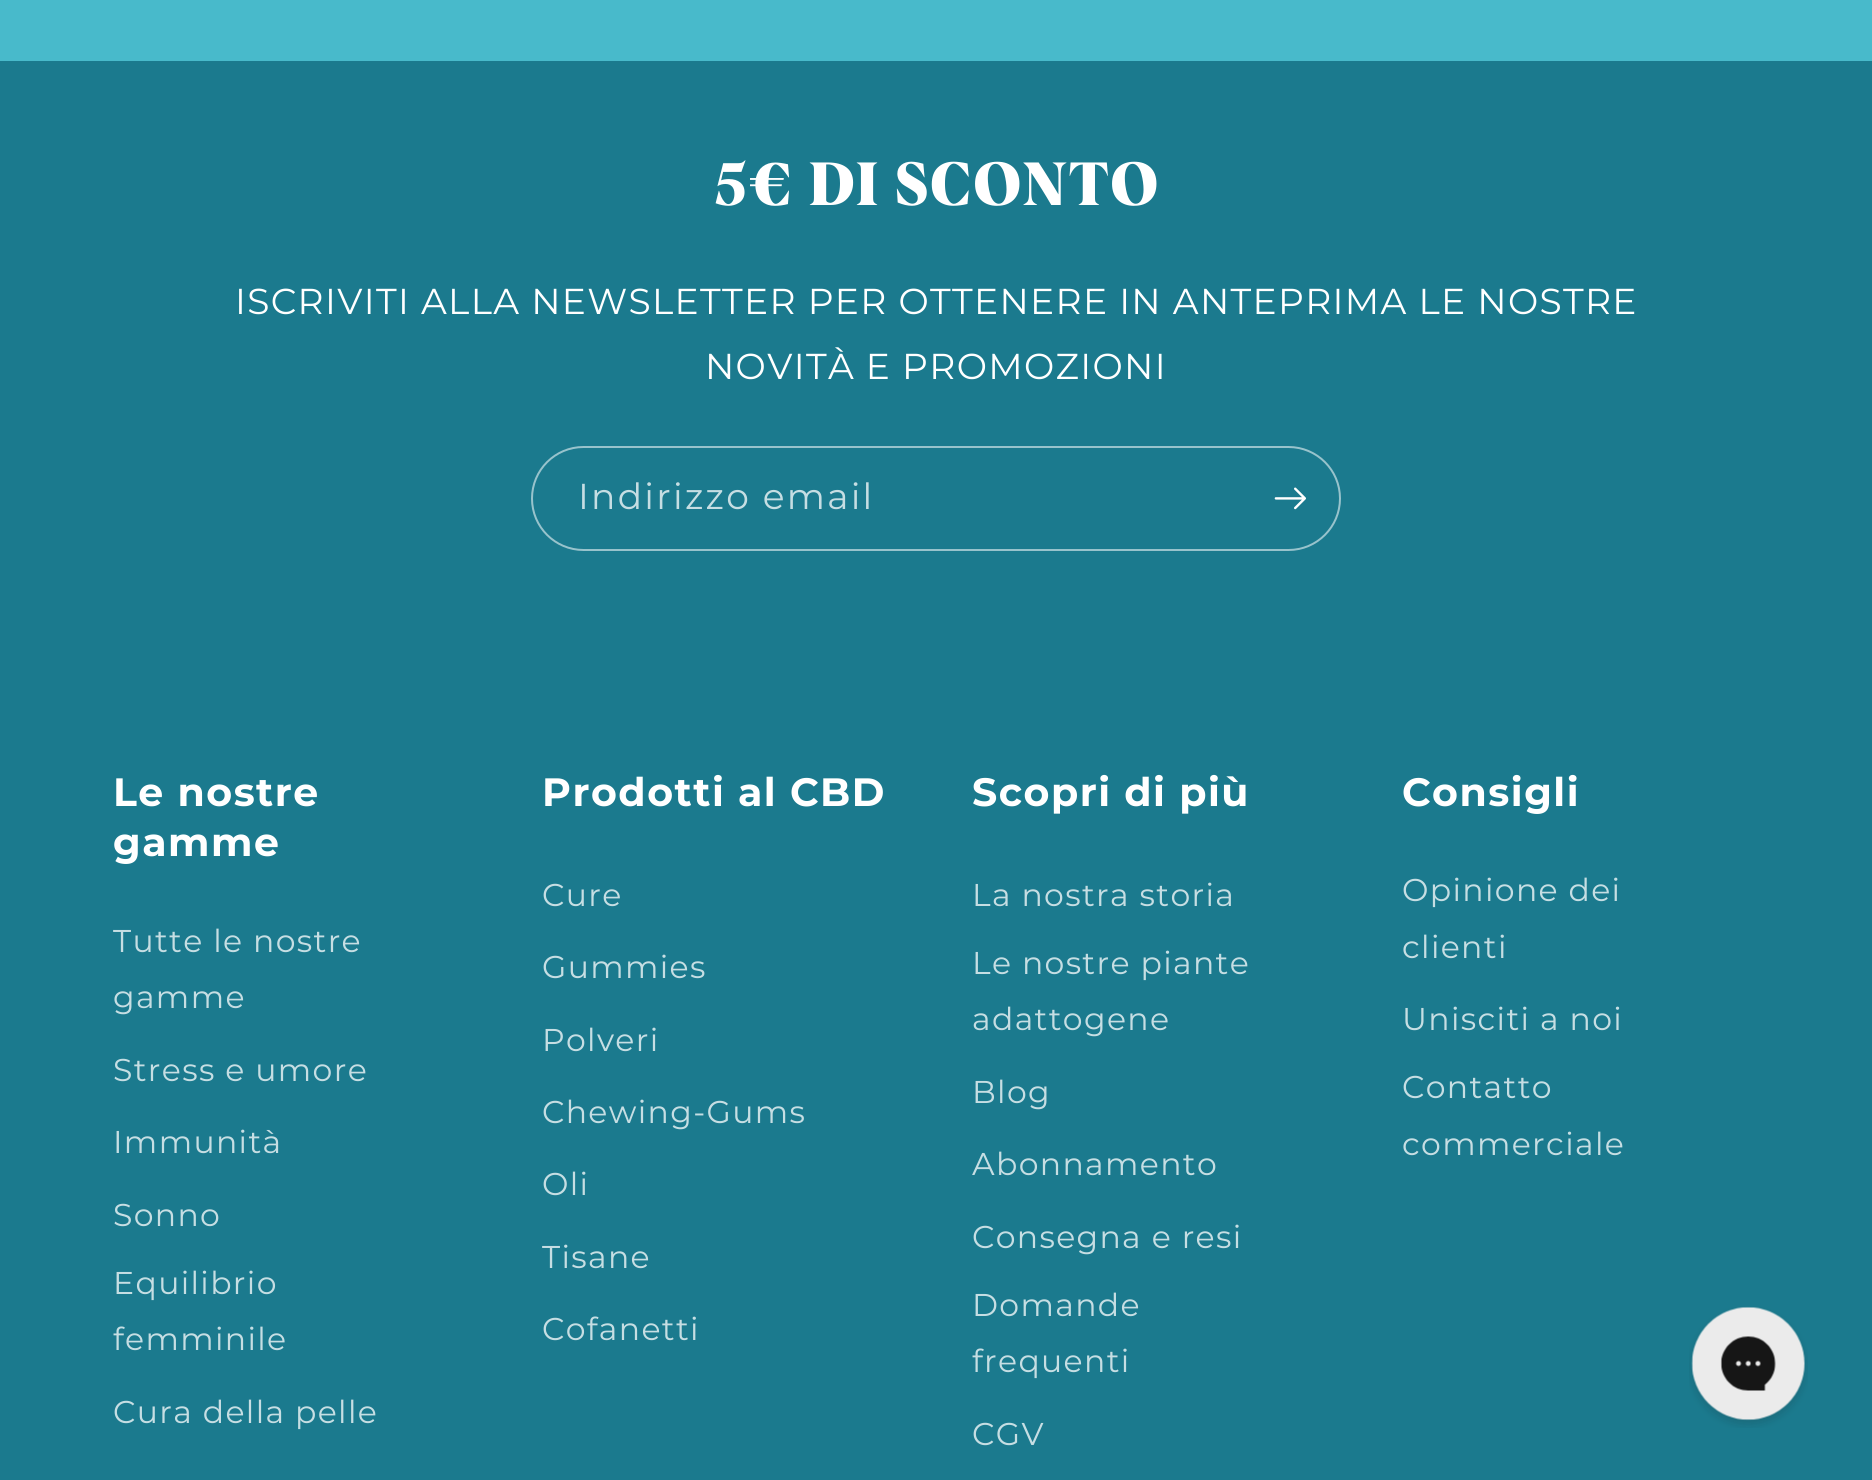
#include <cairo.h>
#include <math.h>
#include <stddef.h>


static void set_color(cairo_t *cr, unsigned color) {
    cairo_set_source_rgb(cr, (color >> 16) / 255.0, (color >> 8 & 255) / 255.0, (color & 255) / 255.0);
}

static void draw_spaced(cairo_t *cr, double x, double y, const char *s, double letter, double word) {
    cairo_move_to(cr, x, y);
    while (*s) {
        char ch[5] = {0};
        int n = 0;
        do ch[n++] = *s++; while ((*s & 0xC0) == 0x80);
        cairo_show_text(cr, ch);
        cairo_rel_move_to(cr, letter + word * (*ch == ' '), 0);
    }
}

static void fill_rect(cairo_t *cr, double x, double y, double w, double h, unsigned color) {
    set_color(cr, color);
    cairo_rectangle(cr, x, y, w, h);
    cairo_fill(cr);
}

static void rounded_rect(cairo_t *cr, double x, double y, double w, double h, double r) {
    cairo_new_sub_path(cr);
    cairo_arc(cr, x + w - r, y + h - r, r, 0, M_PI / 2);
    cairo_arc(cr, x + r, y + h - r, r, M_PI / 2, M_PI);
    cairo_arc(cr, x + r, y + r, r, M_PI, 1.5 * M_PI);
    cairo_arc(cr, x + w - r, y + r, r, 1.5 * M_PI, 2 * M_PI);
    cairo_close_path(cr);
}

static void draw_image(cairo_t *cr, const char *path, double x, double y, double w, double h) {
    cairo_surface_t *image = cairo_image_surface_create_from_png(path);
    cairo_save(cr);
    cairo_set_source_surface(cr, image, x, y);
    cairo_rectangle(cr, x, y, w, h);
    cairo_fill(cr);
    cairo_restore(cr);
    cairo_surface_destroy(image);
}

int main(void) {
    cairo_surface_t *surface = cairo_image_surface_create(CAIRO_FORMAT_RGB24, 1872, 1480);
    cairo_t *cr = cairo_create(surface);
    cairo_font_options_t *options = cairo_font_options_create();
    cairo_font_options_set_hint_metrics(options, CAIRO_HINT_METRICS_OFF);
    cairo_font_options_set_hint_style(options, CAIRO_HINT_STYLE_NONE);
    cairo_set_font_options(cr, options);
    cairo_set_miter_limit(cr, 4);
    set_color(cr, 0x48BACB);
    cairo_paint(cr);
    fill_rect(cr, 0, 61, 1872, 1419, 0x1B7A8E);
    cairo_select_font_face(cr, "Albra", CAIRO_FONT_SLANT_NORMAL, CAIRO_FONT_WEIGHT_BOLD);
    cairo_set_font_size(cr, 59.5);
    set_color(cr, 0xFFFFFF);
    draw_spaced(cr, 714, 205, "5€ DI SCONTO", 1.5, 0);
    cairo_select_font_face(cr, "Montserrat", CAIRO_FONT_SLANT_NORMAL, CAIRO_FONT_WEIGHT_NORMAL);
    cairo_set_font_size(cr, 36);
    draw_spaced(cr, 235, 314, "ISCRIVITI ALLA NEWSLETTER PER OTTENERE IN ANTEPRIMA LE NOSTRE", 1.35, 0);
    draw_spaced(cr, 705, 379, "NOVITÀ E PROMOZIONI", 1.35, 0);
    rounded_rect(cr, 532, 447, 808, 103, 51.5);
    set_color(cr, 0x98C3CC);
    cairo_stroke(cr);
    set_color(cr, 0xC6DEE3);
    draw_spaced(cr, 578, 509, "Indirizzo email", 2.25, 0);
    draw_image(cr, "assets/img1.png", 1274, 487, 32, 23);
    cairo_select_font_face(cr, "Montserrat", CAIRO_FONT_SLANT_NORMAL, CAIRO_FONT_WEIGHT_BOLD);
    cairo_set_font_size(cr, 39.5);
    set_color(cr, 0xFFFFFF);
    draw_spaced(cr, 113, 806, "Le nostre", 1.5, 0);
    draw_spaced(cr, 113, 856, "gamme", 1.5, 0);
    cairo_select_font_face(cr, "Montserrat", CAIRO_FONT_SLANT_NORMAL, CAIRO_FONT_WEIGHT_NORMAL);
    cairo_set_font_size(cr, 31.5);
    set_color(cr, 0xC6DEE3);
    draw_spaced(cr, 113, 952, "Tutte le nostre", 1.35, 0);
    draw_spaced(cr, 113, 1008, "gamme", 1.35, 0);
    draw_spaced(cr, 113, 1081, "Stress e umore", 1.35, 0);
    draw_spaced(cr, 113, 1153, "Immunità", 1.35, 0);
    draw_spaced(cr, 113, 1226, "Sonno", 1.35, 0);
    draw_spaced(cr, 113, 1294, "Equilibrio", 1.35, 0);
    draw_spaced(cr, 113, 1350, "femminile", 1.35, 0);
    draw_spaced(cr, 113, 1423, "Cura della pelle", 1.35, 0);
    cairo_select_font_face(cr, "Montserrat", CAIRO_FONT_SLANT_NORMAL, CAIRO_FONT_WEIGHT_BOLD);
    cairo_set_font_size(cr, 39.5);
    set_color(cr, 0xFFFFFF);
    draw_spaced(cr, 542, 806, "Prodotti al CBD", 1.5, 0);
    cairo_select_font_face(cr, "Montserrat", CAIRO_FONT_SLANT_NORMAL, CAIRO_FONT_WEIGHT_NORMAL);
    cairo_set_font_size(cr, 31.5);
    set_color(cr, 0xC6DEE3);
    draw_spaced(cr, 542, 906, "Cure", 1.35, 0);
    draw_spaced(cr, 542, 978, "Gummies", 1.35, 0);
    draw_spaced(cr, 542, 1051, "Polveri", 1.35, 0);
    draw_spaced(cr, 542, 1123, "Chewing-Gums", 1.35, 0);
    draw_spaced(cr, 542, 1195, "Oli", 1.35, 0);
    draw_spaced(cr, 542, 1268, "Tisane", 1.35, 0);
    draw_spaced(cr, 542, 1340, "Cofanetti", 1.35, 0);
    cairo_select_font_face(cr, "Montserrat", CAIRO_FONT_SLANT_NORMAL, CAIRO_FONT_WEIGHT_BOLD);
    cairo_set_font_size(cr, 39.5);
    set_color(cr, 0xFFFFFF);
    draw_spaced(cr, 972, 806, "Scopri di più", 1.5, 0);
    cairo_select_font_face(cr, "Montserrat", CAIRO_FONT_SLANT_NORMAL, CAIRO_FONT_WEIGHT_NORMAL);
    cairo_set_font_size(cr, 31.5);
    set_color(cr, 0xC6DEE3);
    draw_spaced(cr, 972, 906, "La nostra storia", 1.35, 0);
    draw_spaced(cr, 972, 974, "Le nostre piante", 1.35, 0);
    draw_spaced(cr, 972, 1030, "adattogene", 1.35, 0);
    draw_spaced(cr, 972, 1103, "Blog", 1.35, 0);
    draw_spaced(cr, 972, 1175, "Abonnamento", 1.35, 0);
    draw_spaced(cr, 972, 1248, "Consegna e resi", 1.35, 0);
    draw_spaced(cr, 972, 1316, "Domande", 1.35, 0);
    draw_spaced(cr, 972, 1372, "frequenti", 1.35, 0);
    draw_spaced(cr, 972, 1445, "CGV", 1.35, 0);
    cairo_select_font_face(cr, "Montserrat", CAIRO_FONT_SLANT_NORMAL, CAIRO_FONT_WEIGHT_BOLD);
    cairo_set_font_size(cr, 39.5);
    set_color(cr, 0xFFFFFF);
    draw_spaced(cr, 1402, 806, "Consigli", 1.5, 0);
    cairo_select_font_face(cr, "Montserrat", CAIRO_FONT_SLANT_NORMAL, CAIRO_FONT_WEIGHT_NORMAL);
    cairo_set_font_size(cr, 31.5);
    set_color(cr, 0xC6DEE3);
    draw_spaced(cr, 1402, 901, "Opinione dei", 1.35, 0);
    draw_spaced(cr, 1402, 958, "clienti", 1.35, 0);
    draw_spaced(cr, 1402, 1030, "Unisciti a noi", 1.35, 0);
    draw_spaced(cr, 1402, 1098, "Contatto", 1.35, 0);
    draw_spaced(cr, 1402, 1155, "commerciale", 1.35, 0);
    draw_image(cr, "assets/img2.png", 1689, 1306, 119, 122);
    cairo_surface_write_to_png(surface, "output.png");
    cairo_font_options_destroy(options);
    cairo_destroy(cr);
    cairo_surface_destroy(surface);
    return 0;
}
